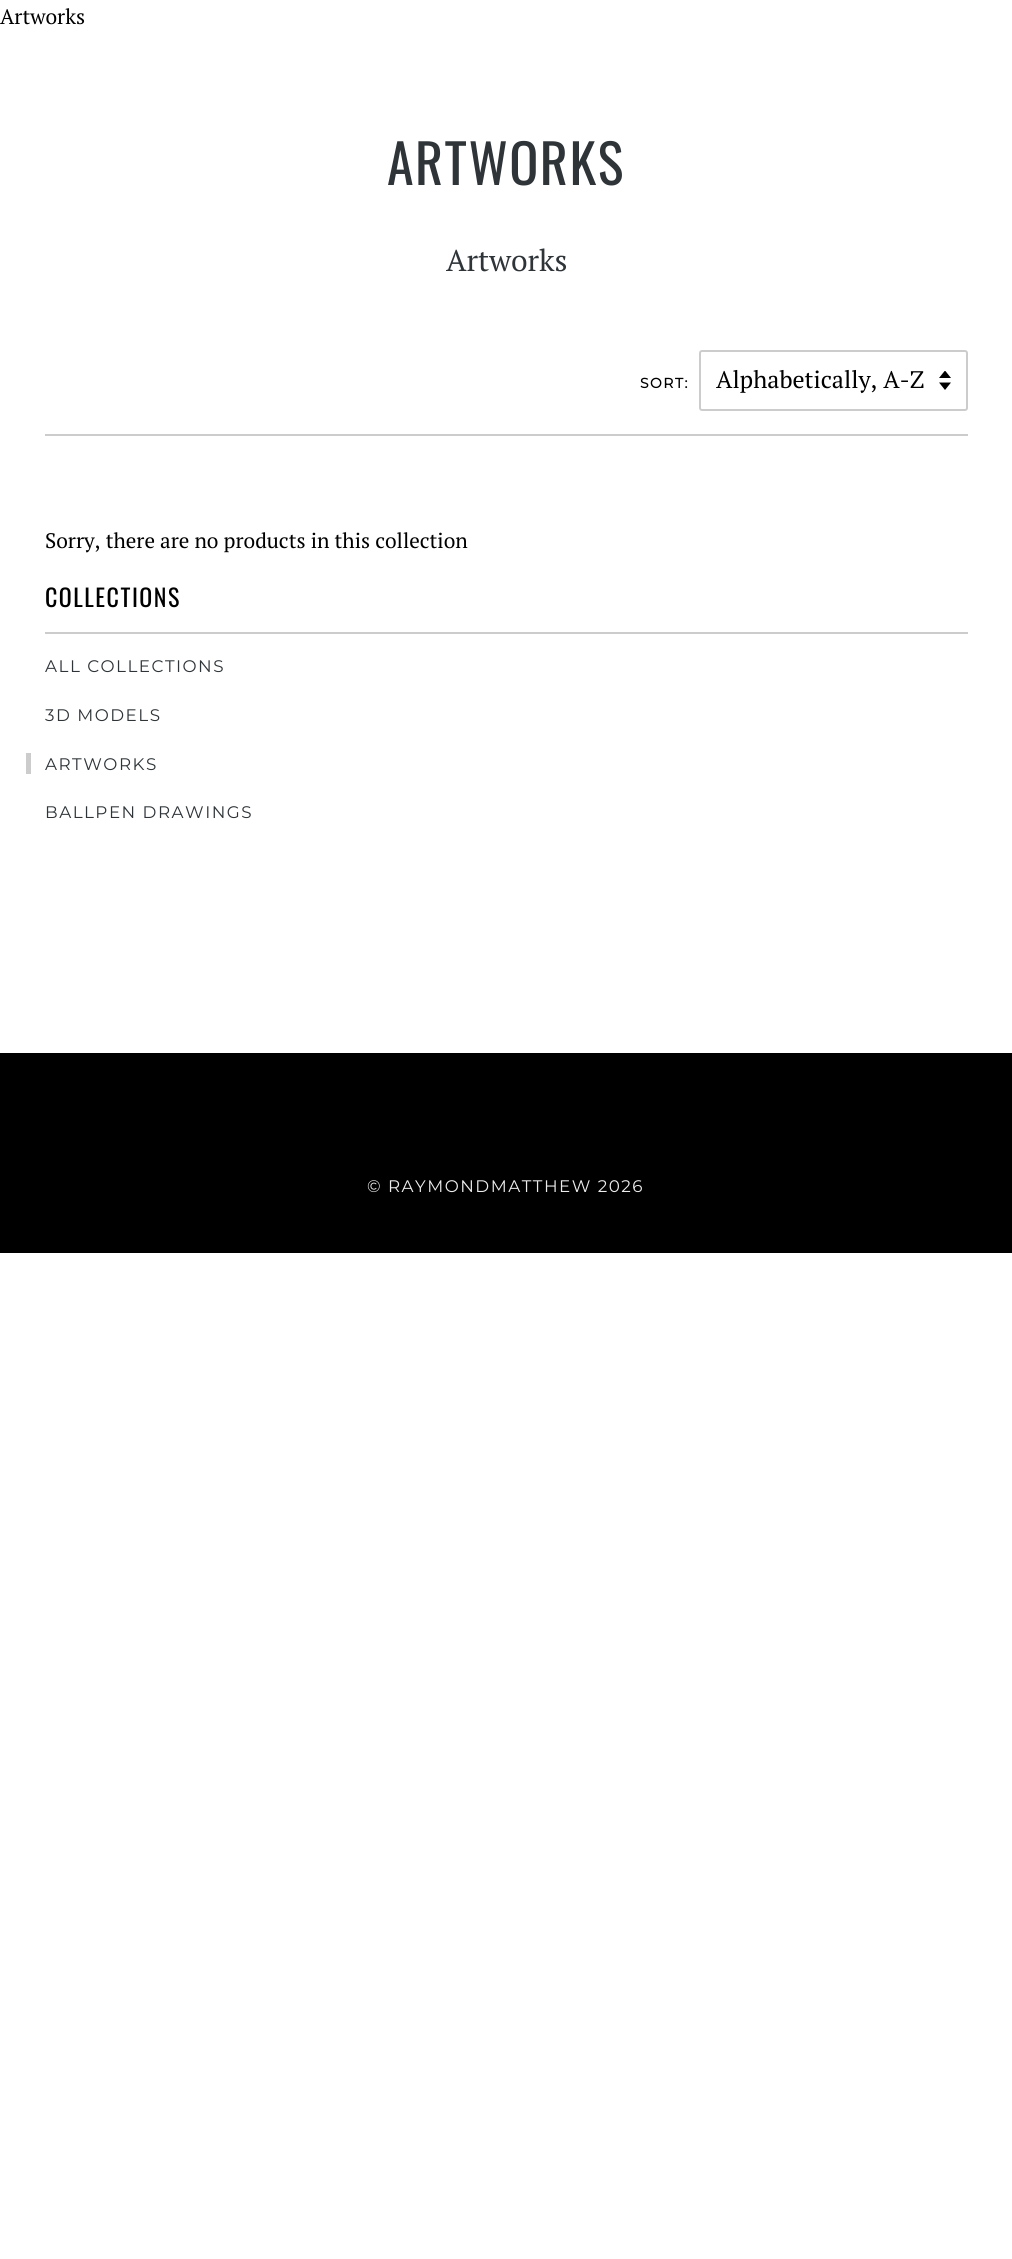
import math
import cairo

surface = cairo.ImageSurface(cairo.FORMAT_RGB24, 1012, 2259)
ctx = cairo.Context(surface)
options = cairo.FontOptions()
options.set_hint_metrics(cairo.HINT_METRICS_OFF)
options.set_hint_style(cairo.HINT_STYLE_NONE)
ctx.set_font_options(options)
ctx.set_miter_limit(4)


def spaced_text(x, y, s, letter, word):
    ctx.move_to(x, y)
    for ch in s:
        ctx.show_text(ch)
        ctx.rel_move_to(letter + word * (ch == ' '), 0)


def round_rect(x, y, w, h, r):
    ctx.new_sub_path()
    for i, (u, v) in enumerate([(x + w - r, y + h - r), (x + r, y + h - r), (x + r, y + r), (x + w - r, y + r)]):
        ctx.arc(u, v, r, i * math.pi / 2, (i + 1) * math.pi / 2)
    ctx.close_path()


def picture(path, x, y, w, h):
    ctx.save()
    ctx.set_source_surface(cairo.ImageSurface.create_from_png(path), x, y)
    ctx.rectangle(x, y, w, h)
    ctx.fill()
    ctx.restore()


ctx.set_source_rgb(1, 1, 1)
ctx.paint()
ctx.select_font_face("PT Serif")
ctx.set_font_size(21)
ctx.set_source_rgb(0, 0, 0)
ctx.move_to(0, 24)
ctx.show_text("Artworks")
ctx.select_font_face("Oswald")
ctx.set_font_size(54)
ctx.set_source_rgb(0.18, 0.204, 0.22)
spaced_text(387, 185, "ARTWORKS", 1.5, 0)
ctx.select_font_face("PT Serif")
ctx.set_font_size(30)
ctx.move_to(446, 271)
ctx.show_text("Artworks")
ctx.set_source_rgb(0.8, 0.8, 0.8)
ctx.rectangle(45, 434, 923, 2)
ctx.fill()
ctx.select_font_face("Montserrat", cairo.FONT_SLANT_NORMAL, cairo.FONT_WEIGHT_BOLD)
ctx.set_font_size(14)
ctx.set_source_rgb(0, 0, 0)
spaced_text(640, 388, "SORT:", 1.5, 0)
picture("img1.png", 939, 371, 12, 19)
round_rect(700, 351, 267, 59, 2)
ctx.set_source_rgb(0.8, 0.8, 0.8)
ctx.stroke()
ctx.select_font_face("PT Serif")
ctx.set_font_size(24)
ctx.set_source_rgb(0, 0, 0)
ctx.move_to(716, 388)
ctx.show_text("Alphabetically, A-Z")
ctx.set_font_size(21)
ctx.move_to(45, 548)
ctx.show_text("Sorry, there are no products in this collection")
ctx.select_font_face("Oswald")
ctx.set_font_size(24)
spaced_text(45, 607, "COLLECTIONS", 1.5, 0)
ctx.set_source_rgb(0.8, 0.8, 0.8)
ctx.rectangle(45, 632, 923, 2)
ctx.fill()
ctx.select_font_face("Montserrat Thin")
ctx.set_font_size(16.75)
ctx.set_source_rgb(0.18, 0.204, 0.22)
spaced_text(45, 672, "ALL COLLECTIONS", 1.5, 0)
spaced_text(45, 721, "3D MODELS", 1.5, 0)
spaced_text(45, 770, "ARTWORKS", 1.5, 0)
ctx.set_source_rgb(0.8, 0.8, 0.8)
ctx.rectangle(26, 753, 5, 21)
ctx.fill()
ctx.set_source_rgb(0.18, 0.204, 0.22)
spaced_text(45, 818, "BALLPEN DRAWINGS", 1.5, 0)
ctx.set_source_rgb(0, 0, 0)
ctx.rectangle(0, 1053, 1012, 200)
ctx.fill()
ctx.set_source_rgb(0.929, 0.929, 0.929)
spaced_text(367, 1192, "© RAYMONDMATTHEW 2026", 1.5, 0)
surface.write_to_png("page.png")
